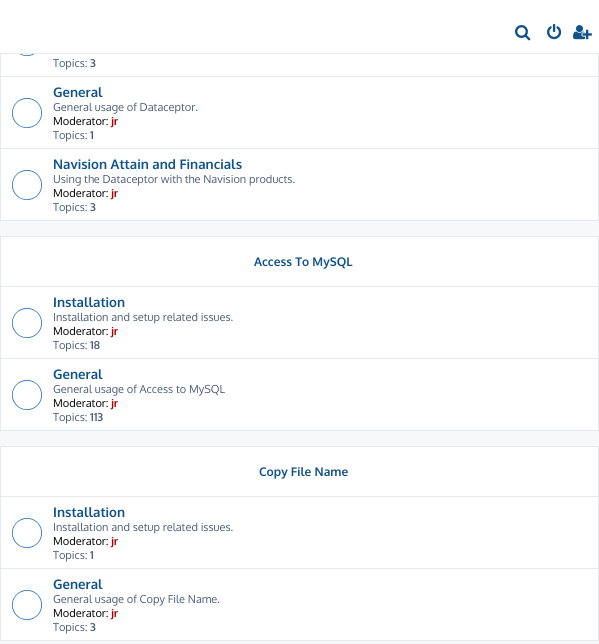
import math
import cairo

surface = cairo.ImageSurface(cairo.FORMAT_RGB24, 599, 644)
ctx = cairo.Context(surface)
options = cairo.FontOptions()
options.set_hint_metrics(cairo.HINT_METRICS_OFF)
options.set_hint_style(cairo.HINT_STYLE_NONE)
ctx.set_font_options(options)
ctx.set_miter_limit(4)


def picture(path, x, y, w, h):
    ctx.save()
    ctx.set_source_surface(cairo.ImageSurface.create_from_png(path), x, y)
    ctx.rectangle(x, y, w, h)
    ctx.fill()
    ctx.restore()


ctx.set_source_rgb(0.961, 0.969, 0.98)
ctx.paint()
ctx.set_source_rgb(1, 1, 1)
ctx.rectangle(1, 54, 597, 166)
ctx.fill()
ctx.rectangle(0.5, -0.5, 598, 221)
ctx.set_source_rgb(0.902, 0.914, 0.929)
ctx.set_line_width(1)
ctx.stroke()
ctx.set_source_rgb(1, 1, 1)
ctx.rectangle(0, 0, 599, 53)
ctx.fill()
ctx.set_source_rgb(0.902, 0.914, 0.929)
ctx.rectangle(0, 53, 599, 1)
ctx.fill()
picture("img1.png", 515, 25, 16, 16)
picture("img2.png", 547, 23, 15, 17)
picture("img3.png", 573, 25, 19, 15)
picture("img4.png", 19, 54, 16, 2)
ctx.select_font_face("Oxygen")
ctx.set_font_size(11)
ctx.set_source_rgb(0.298, 0.365, 0.467)
ctx.move_to(53, 67)
ctx.show_text("Topics:")
ctx.select_font_face("Oxygen", cairo.FONT_SLANT_NORMAL, cairo.FONT_WEIGHT_BOLD)
ctx.move_to(90, 67)
ctx.show_text("3")
ctx.set_source_rgb(0.902, 0.914, 0.929)
ctx.rectangle(1, 76, 597, 1)
ctx.fill()
picture("img5.png", 12, 98, 30, 30)
ctx.set_font_size(13.25)
ctx.set_source_rgb(0.063, 0.322, 0.537)
ctx.move_to(53, 97)
ctx.show_text("General")
ctx.select_font_face("Oxygen")
ctx.set_font_size(11)
ctx.set_source_rgb(0.298, 0.365, 0.467)
ctx.move_to(53, 111)
ctx.show_text("General usage of Dataceptor.")
ctx.set_source_rgb(0, 0, 0)
ctx.move_to(53, 125)
ctx.show_text("Moderator:")
ctx.select_font_face("Oxygen", cairo.FONT_SLANT_NORMAL, cairo.FONT_WEIGHT_BOLD)
ctx.set_source_rgb(0.667, 0, 0)
ctx.move_to(111, 125)
ctx.show_text("jr")
ctx.select_font_face("Oxygen")
ctx.set_source_rgb(0.298, 0.365, 0.467)
ctx.move_to(53, 139)
ctx.show_text("Topics:")
ctx.select_font_face("Oxygen", cairo.FONT_SLANT_NORMAL, cairo.FONT_WEIGHT_BOLD)
ctx.move_to(90, 139)
ctx.show_text("1")
ctx.set_source_rgb(0.902, 0.914, 0.929)
ctx.rectangle(1, 148, 597, 1)
ctx.fill()
picture("img5.png", 12, 170, 30, 30)
ctx.set_font_size(13.25)
ctx.set_source_rgb(0.063, 0.322, 0.537)
ctx.move_to(53, 169)
ctx.show_text("Navision Attain and Financials")
ctx.select_font_face("Oxygen")
ctx.set_font_size(11)
ctx.set_source_rgb(0.298, 0.365, 0.467)
ctx.move_to(53, 183)
ctx.show_text("Using the Dataceptor with the Navision products.")
ctx.set_source_rgb(0, 0, 0)
ctx.move_to(53, 197)
ctx.show_text("Moderator:")
ctx.select_font_face("Oxygen", cairo.FONT_SLANT_NORMAL, cairo.FONT_WEIGHT_BOLD)
ctx.set_source_rgb(0.667, 0, 0)
ctx.move_to(111, 197)
ctx.show_text("jr")
ctx.select_font_face("Oxygen")
ctx.set_source_rgb(0.298, 0.365, 0.467)
ctx.move_to(53, 211)
ctx.show_text("Topics:")
ctx.select_font_face("Oxygen", cairo.FONT_SLANT_NORMAL, cairo.FONT_WEIGHT_BOLD)
ctx.move_to(90, 211)
ctx.show_text("3")
ctx.set_source_rgb(1, 1, 1)
ctx.rectangle(0.5, 236.5, 598, 194)
ctx.fill_preserve()
ctx.set_source_rgb(0.902, 0.914, 0.929)
ctx.stroke()
ctx.set_font_size(12)
ctx.set_source_rgb(0.063, 0.322, 0.537)
ctx.move_to(254, 266)
ctx.show_text("Access To MySQL")
ctx.set_source_rgb(0.902, 0.914, 0.929)
ctx.rectangle(1, 286, 597, 1)
ctx.fill()
picture("img5.png", 12, 308, 30, 30)
ctx.set_font_size(13.25)
ctx.set_source_rgb(0.063, 0.322, 0.537)
ctx.move_to(53, 307)
ctx.show_text("Installation")
ctx.select_font_face("Oxygen")
ctx.set_font_size(11)
ctx.set_source_rgb(0.298, 0.365, 0.467)
ctx.move_to(53, 321)
ctx.show_text("Installation and setup related issues.")
ctx.set_source_rgb(0, 0, 0)
ctx.move_to(53, 335)
ctx.show_text("Moderator:")
ctx.select_font_face("Oxygen", cairo.FONT_SLANT_NORMAL, cairo.FONT_WEIGHT_BOLD)
ctx.set_source_rgb(0.667, 0, 0)
ctx.move_to(111, 335)
ctx.show_text("jr")
ctx.select_font_face("Oxygen")
ctx.set_source_rgb(0.298, 0.365, 0.467)
ctx.move_to(53, 349)
ctx.show_text("Topics:")
ctx.select_font_face("Oxygen", cairo.FONT_SLANT_NORMAL, cairo.FONT_WEIGHT_BOLD)
ctx.move_to(90, 349)
ctx.show_text("18")
ctx.set_source_rgb(0.902, 0.914, 0.929)
ctx.rectangle(1, 358, 597, 1)
ctx.fill()
picture("img5.png", 12, 380, 30, 30)
ctx.set_font_size(13.25)
ctx.set_source_rgb(0.063, 0.322, 0.537)
ctx.move_to(53, 379)
ctx.show_text("General")
ctx.select_font_face("Oxygen")
ctx.set_font_size(11)
ctx.set_source_rgb(0.298, 0.365, 0.467)
ctx.move_to(53, 393)
ctx.show_text("General usage of Access to MySQL")
ctx.set_source_rgb(0, 0, 0)
ctx.move_to(53, 407)
ctx.show_text("Moderator:")
ctx.select_font_face("Oxygen", cairo.FONT_SLANT_NORMAL, cairo.FONT_WEIGHT_BOLD)
ctx.set_source_rgb(0.667, 0, 0)
ctx.move_to(111, 407)
ctx.show_text("jr")
ctx.select_font_face("Oxygen")
ctx.set_source_rgb(0.298, 0.365, 0.467)
ctx.move_to(53, 421)
ctx.show_text("Topics:")
ctx.select_font_face("Oxygen", cairo.FONT_SLANT_NORMAL, cairo.FONT_WEIGHT_BOLD)
ctx.move_to(90, 421)
ctx.show_text("113")
ctx.set_source_rgb(1, 1, 1)
ctx.rectangle(0.5, 446.5, 598, 194)
ctx.fill_preserve()
ctx.set_source_rgb(0.902, 0.914, 0.929)
ctx.stroke()
ctx.set_font_size(12)
ctx.set_source_rgb(0.063, 0.322, 0.537)
ctx.move_to(259, 476)
ctx.show_text("Copy File Name")
ctx.set_source_rgb(0.902, 0.914, 0.929)
ctx.rectangle(1, 496, 597, 1)
ctx.fill()
picture("img5.png", 12, 518, 30, 30)
ctx.set_font_size(13.25)
ctx.set_source_rgb(0.063, 0.322, 0.537)
ctx.move_to(53, 517)
ctx.show_text("Installation")
ctx.select_font_face("Oxygen")
ctx.set_font_size(11)
ctx.set_source_rgb(0.298, 0.365, 0.467)
ctx.move_to(53, 531)
ctx.show_text("Installation and setup related issues.")
ctx.set_source_rgb(0, 0, 0)
ctx.move_to(53, 545)
ctx.show_text("Moderator:")
ctx.select_font_face("Oxygen", cairo.FONT_SLANT_NORMAL, cairo.FONT_WEIGHT_BOLD)
ctx.set_source_rgb(0.667, 0, 0)
ctx.move_to(111, 545)
ctx.show_text("jr")
ctx.select_font_face("Oxygen")
ctx.set_source_rgb(0.298, 0.365, 0.467)
ctx.move_to(53, 559)
ctx.show_text("Topics:")
ctx.select_font_face("Oxygen", cairo.FONT_SLANT_NORMAL, cairo.FONT_WEIGHT_BOLD)
ctx.move_to(90, 559)
ctx.show_text("1")
ctx.set_source_rgb(0.902, 0.914, 0.929)
ctx.rectangle(1, 568, 597, 1)
ctx.fill()
picture("img5.png", 12, 590, 30, 30)
ctx.set_font_size(13.25)
ctx.set_source_rgb(0.063, 0.322, 0.537)
ctx.move_to(53, 589)
ctx.show_text("General")
ctx.select_font_face("Oxygen")
ctx.set_font_size(11)
ctx.set_source_rgb(0.298, 0.365, 0.467)
ctx.move_to(53, 603)
ctx.show_text("General usage of Copy File Name.")
ctx.set_source_rgb(0, 0, 0)
ctx.move_to(53, 617)
ctx.show_text("Moderator:")
ctx.select_font_face("Oxygen", cairo.FONT_SLANT_NORMAL, cairo.FONT_WEIGHT_BOLD)
ctx.set_source_rgb(0.667, 0, 0)
ctx.move_to(111, 617)
ctx.show_text("jr")
ctx.select_font_face("Oxygen")
ctx.set_source_rgb(0.298, 0.365, 0.467)
ctx.move_to(53, 631)
ctx.show_text("Topics:")
ctx.select_font_face("Oxygen", cairo.FONT_SLANT_NORMAL, cairo.FONT_WEIGHT_BOLD)
ctx.move_to(90, 631)
ctx.show_text("3")
surface.write_to_png("page.png")
